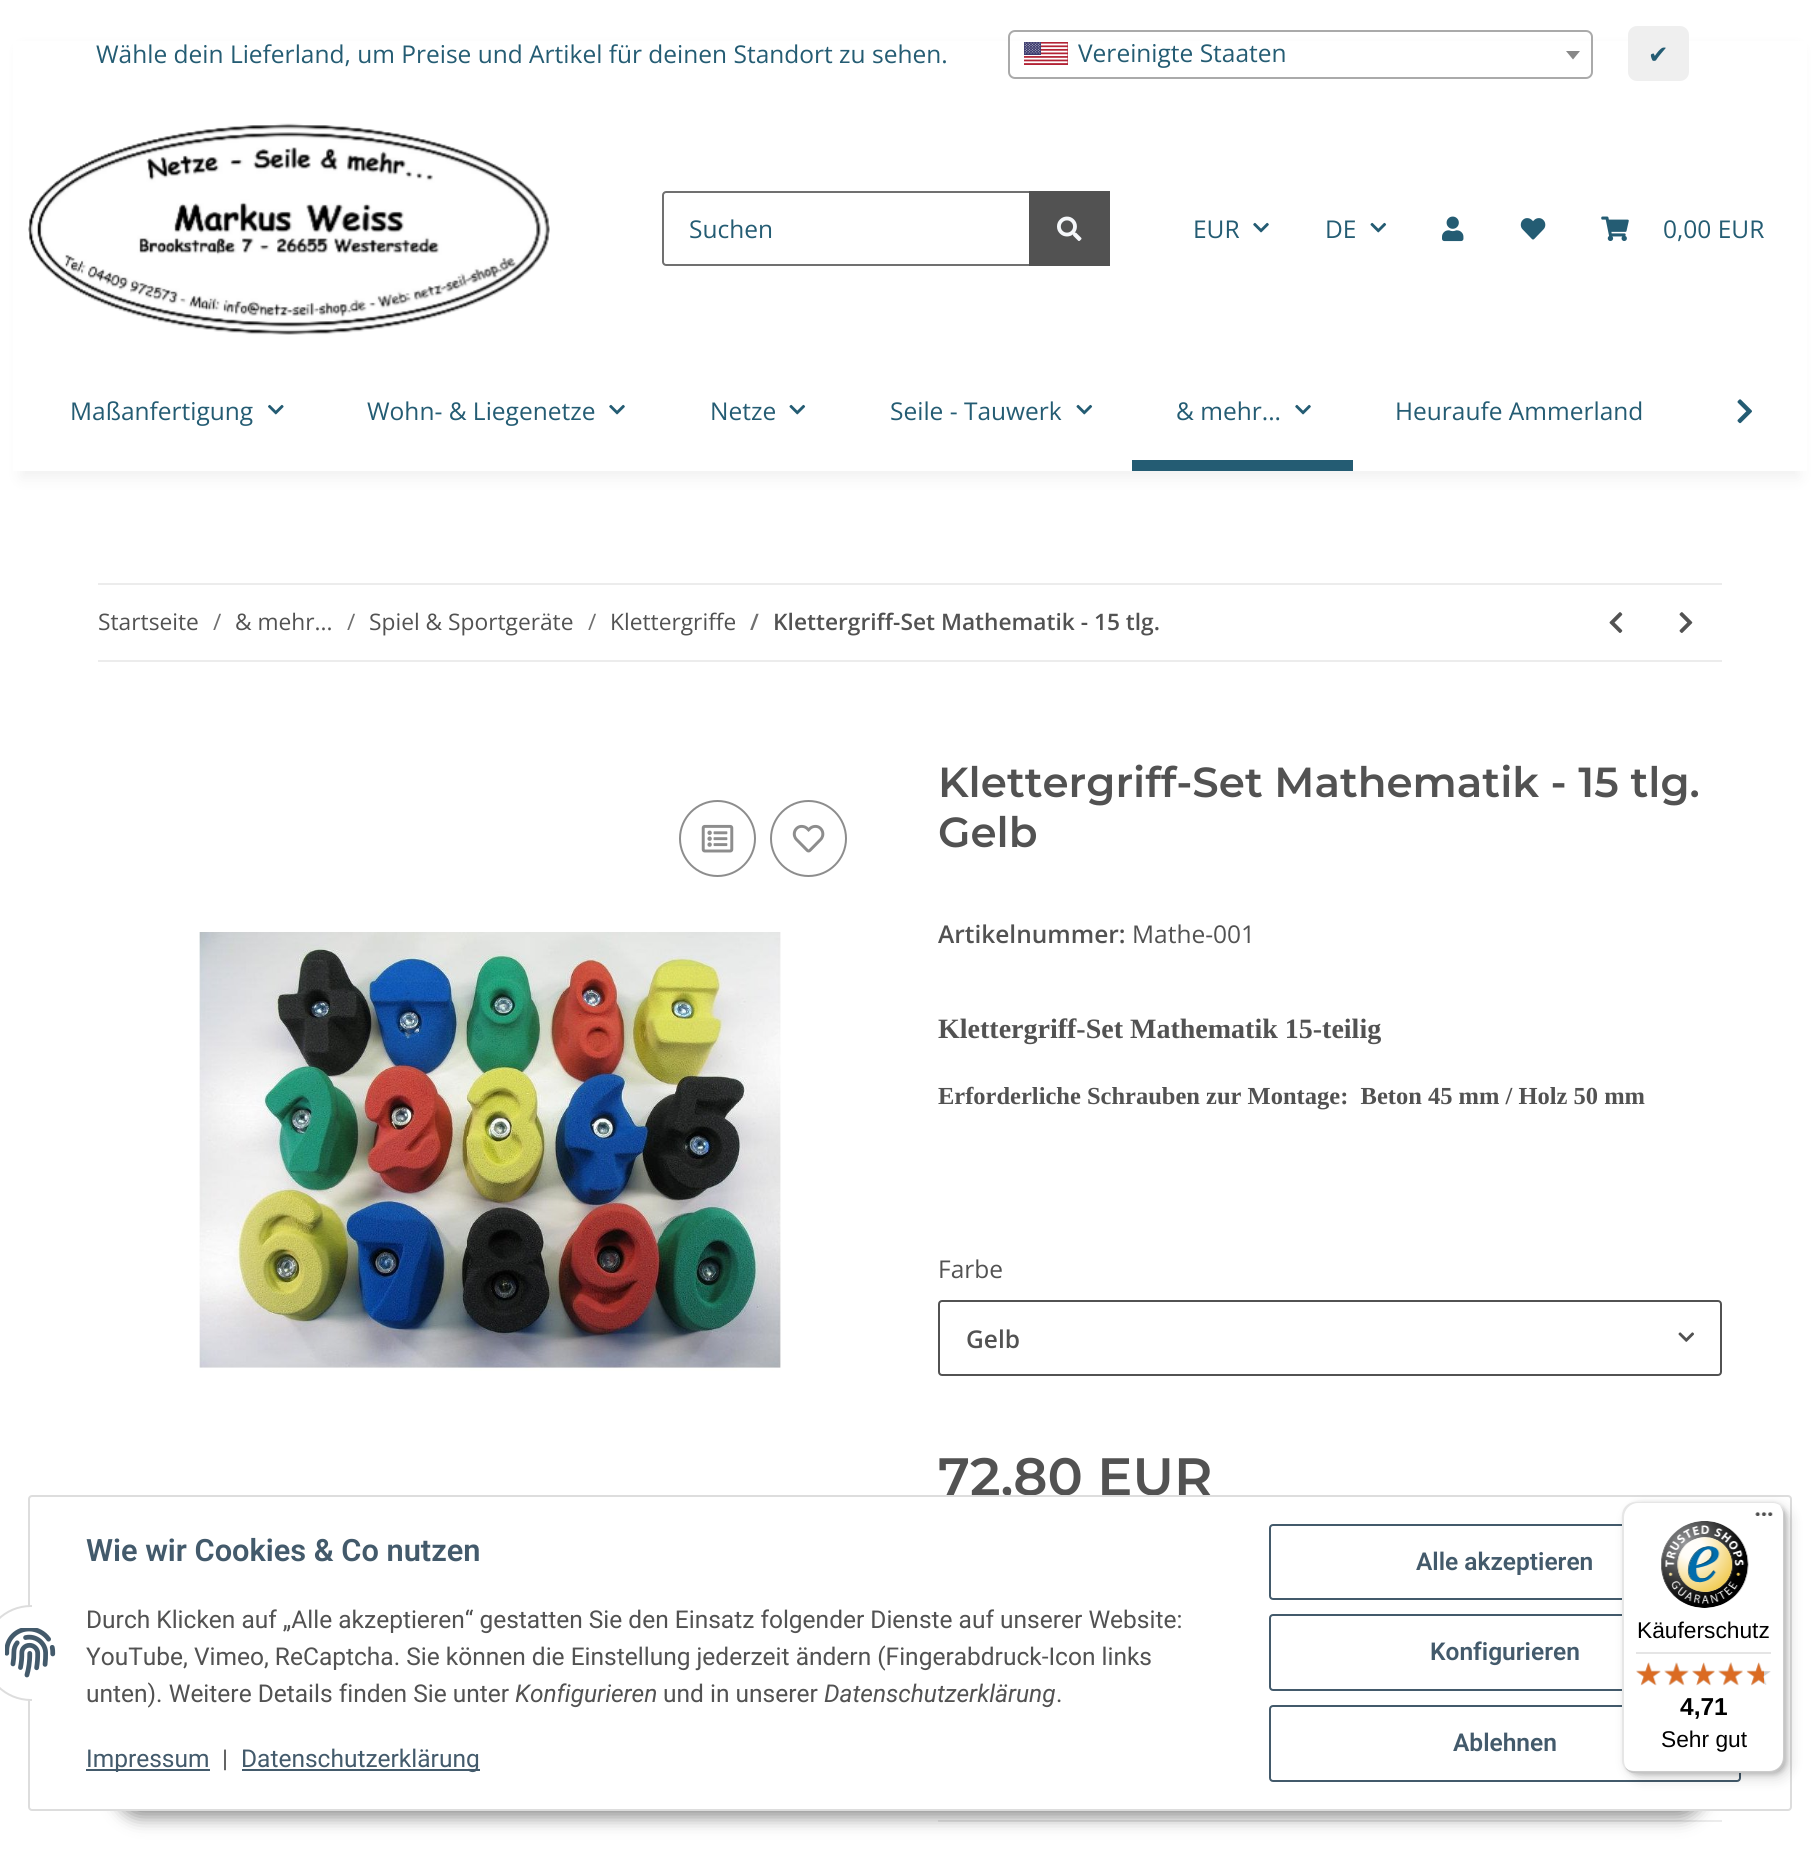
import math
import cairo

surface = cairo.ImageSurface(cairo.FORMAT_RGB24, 1819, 1866)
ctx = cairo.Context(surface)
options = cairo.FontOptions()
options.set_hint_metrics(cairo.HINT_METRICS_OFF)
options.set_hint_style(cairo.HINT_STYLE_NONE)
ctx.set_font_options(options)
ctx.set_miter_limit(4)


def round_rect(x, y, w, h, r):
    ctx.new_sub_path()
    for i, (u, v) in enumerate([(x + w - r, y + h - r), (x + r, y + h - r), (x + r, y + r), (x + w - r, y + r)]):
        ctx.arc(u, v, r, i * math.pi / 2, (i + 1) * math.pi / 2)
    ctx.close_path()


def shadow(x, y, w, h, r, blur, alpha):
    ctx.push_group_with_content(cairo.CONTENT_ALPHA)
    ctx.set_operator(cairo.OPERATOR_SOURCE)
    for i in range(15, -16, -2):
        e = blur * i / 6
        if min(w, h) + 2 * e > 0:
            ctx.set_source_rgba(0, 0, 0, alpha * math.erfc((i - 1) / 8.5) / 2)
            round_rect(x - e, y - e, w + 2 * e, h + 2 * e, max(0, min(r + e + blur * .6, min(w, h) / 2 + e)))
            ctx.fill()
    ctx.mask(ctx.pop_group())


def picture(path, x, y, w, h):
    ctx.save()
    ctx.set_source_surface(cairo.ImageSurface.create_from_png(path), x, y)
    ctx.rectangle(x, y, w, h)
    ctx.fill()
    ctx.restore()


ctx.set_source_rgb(1, 1, 1)
ctx.paint()
ctx.set_source_rgb(0, 0, 0)
shadow(21, 49, 1778, 429, 0, 8, 0.06)
ctx.set_source_rgb(1, 1, 1)
ctx.rectangle(13, 41, 1794, 430)
ctx.fill()
ctx.select_font_face("Open Sans")
ctx.set_font_size(24.5)
ctx.set_source_rgb(0.141, 0.361, 0.451)
ctx.move_to(96, 63)
ctx.show_text("Wähle dein Lieferland, um Preise und Artikel für deinen Standort zu sehen.")
round_rect(1009, 31, 583, 47, 6)
ctx.set_source_rgb(0.667, 0.667, 0.667)
ctx.stroke()
picture("img1.png", 1024, 42, 44, 23)
ctx.set_source_rgb(0.141, 0.361, 0.451)
ctx.move_to(1078, 62)
ctx.show_text("Vereinigte Staaten")
ctx.set_source_rgb(0.533, 0.533, 0.533)
ctx.new_path()
ctx.move_to(1566, 51)
ctx.line_to(1580, 51)
ctx.line_to(1573, 59.5)
ctx.close_path()
ctx.fill()
ctx.set_source_rgb(0.937, 0.937, 0.937)
round_rect(1628, 26, 61, 55, 9)
ctx.fill()
ctx.select_font_face("DejaVu Sans")
ctx.set_source_rgb(0.141, 0.361, 0.451)
ctx.move_to(1648, 63)
ctx.show_text("✔")
picture("img2.png", 28, 123, 522, 212)
ctx.new_path()
ctx.move_to(666, 192)
ctx.line_to(1030, 192)
ctx.line_to(1030, 265)
ctx.line_to(666, 265)
ctx.curve_to(664.5, 265, 663, 263.5, 663, 262)
ctx.line_to(663, 195)
ctx.curve_to(663, 193.5, 664.5, 192, 666, 192)
ctx.close_path()
ctx.set_source_rgb(0.439, 0.439, 0.439)
ctx.stroke()
ctx.select_font_face("Open Sans")
ctx.set_source_rgb(0.141, 0.361, 0.451)
ctx.move_to(689, 238)
ctx.show_text("Suchen")
ctx.set_source_rgb(0.322, 0.322, 0.322)
ctx.rectangle(1029, 191, 81, 75)
ctx.fill()
picture("img3.png", 1057, 216, 25, 25)
ctx.set_source_rgb(0.141, 0.361, 0.451)
ctx.move_to(1193, 238)
ctx.show_text("EUR")
picture("img4.png", 1253, 222, 16, 11)
ctx.move_to(1325, 238)
ctx.show_text("DE")
picture("img5.png", 1370, 222, 17, 11)
picture("img6.png", 1442, 216, 22, 26)
picture("img7.png", 1520, 218, 26, 22)
picture("img8.png", 1601, 216, 28, 25)
ctx.move_to(1663, 238)
ctx.show_text("0,00 EUR")
ctx.move_to(70, 420)
ctx.show_text("Maßanfertigung")
picture("img9.png", 268, 404, 16, 11)
ctx.move_to(367, 420)
ctx.show_text("Wohn- & Liegenetze")
picture("img4.png", 609, 404, 16, 11)
ctx.move_to(710, 420)
ctx.show_text("Netze")
picture("img5.png", 789, 404, 17, 11)
ctx.move_to(890, 420)
ctx.show_text("Seile - Tauwerk")
picture("img5.png", 1076, 404, 17, 11)
ctx.move_to(1176, 420)
ctx.show_text("& mehr...")
picture("img4.png", 1295, 404, 16, 11)
ctx.rectangle(1132, 460, 221, 11)
ctx.fill()
ctx.move_to(1395, 420)
ctx.show_text("Heuraufe Ammerland")
picture("img10.png", 1737, 399, 15, 25)
ctx.set_source_rgb(0.922, 0.922, 0.922)
ctx.rectangle(98, 583, 1624, 2)
ctx.fill()
ctx.rectangle(98, 660, 1624, 2)
ctx.fill()
ctx.set_font_size(22.75)
ctx.set_source_rgb(0.322, 0.322, 0.322)
ctx.move_to(98, 630)
ctx.show_text("Startseite")
ctx.set_source_rgb(0.439, 0.439, 0.439)
ctx.move_to(213, 630)
ctx.show_text("/")
ctx.set_source_rgb(0.322, 0.322, 0.322)
ctx.move_to(235, 630)
ctx.show_text("& mehr...")
ctx.set_source_rgb(0.439, 0.439, 0.439)
ctx.move_to(347, 630)
ctx.show_text("/")
ctx.set_source_rgb(0.322, 0.322, 0.322)
ctx.move_to(369, 630)
ctx.show_text("Spiel & Sportgeräte")
ctx.set_source_rgb(0.439, 0.439, 0.439)
ctx.move_to(588, 630)
ctx.show_text("/")
ctx.set_source_rgb(0.322, 0.322, 0.322)
ctx.move_to(610, 630)
ctx.show_text("Klettergriffe")
ctx.select_font_face("Open Sans SemiBold")
ctx.set_source_rgb(0.439, 0.439, 0.439)
ctx.move_to(750, 630)
ctx.show_text("/")
ctx.set_source_rgb(0.322, 0.322, 0.322)
ctx.move_to(773, 630)
ctx.show_text("Klettergriff-Set Mathematik - 15 tlg.")
picture("img11.png", 1609, 612, 14, 21)
picture("img12.png", 1679, 612, 14, 21)
ctx.arc(717.5, 838.5, 37.5, 0, 2 * math.pi)
ctx.set_source_rgb(0.553, 0.553, 0.553)
ctx.stroke()
picture("img13.png", 701, 824, 33, 29)
ctx.arc(808.5, 838.5, 37.5, 0, 2 * math.pi)
ctx.stroke()
picture("img14.png", 792, 824, 33, 29)
picture("img15.png", 199, 932, 582, 439)
ctx.select_font_face("Montserrat SemiBold")
ctx.set_font_size(42)
ctx.set_source_rgb(0.322, 0.322, 0.322)
ctx.move_to(938, 797)
ctx.show_text("Klettergriff-Set Mathematik - 15 tlg.")
ctx.move_to(938, 847)
ctx.show_text("Gelb")
ctx.select_font_face("Open Sans SemiBold")
ctx.set_font_size(24.5)
ctx.move_to(938, 943)
ctx.show_text("Artikelnummer:")
ctx.select_font_face("Open Sans")
ctx.move_to(1132, 943)
ctx.show_text("Mathe-001")
ctx.select_font_face("Liberation Serif", cairo.FONT_SLANT_NORMAL, cairo.FONT_WEIGHT_BOLD)
ctx.set_font_size(28)
ctx.move_to(938, 1038)
ctx.show_text("Klettergriff-Set Mathematik 15-teilig")
ctx.set_font_size(24.5)
ctx.move_to(938, 1104)
ctx.show_text("Erforderliche Schrauben zur Montage:  Beton 45 mm / Holz 50 mm")
ctx.select_font_face("Open Sans")
ctx.move_to(938, 1278)
ctx.show_text("Farbe")
round_rect(939, 1301, 782, 74, 3)
ctx.stroke()
ctx.select_font_face("Open Sans SemiBold")
ctx.move_to(966, 1348)
ctx.show_text("Gelb")
picture("img16.png", 1678, 1332, 16, 10)
ctx.select_font_face("Montserrat SemiBold")
ctx.set_font_size(52.5)
ctx.move_to(938, 1495)
ctx.show_text("72,80 EUR")
ctx.set_source_rgb(0.922, 0.922, 0.922)
ctx.rectangle(938, 1820, 784, 2)
ctx.fill()
ctx.set_source_rgb(0, 0, 0)
shadow(117, 1761, 1586, 56, 28, 9, 0.45)
ctx.set_source_rgb(1, 1, 1)
round_rect(29, 1496, 1762, 314, 3)
ctx.fill_preserve()
ctx.set_source_rgb(0.867, 0.867, 0.867)
ctx.stroke()
ctx.set_source_rgb(1, 1, 1)
ctx.arc(31, 1653, 47, 0, 2 * math.pi)
ctx.fill_preserve()
ctx.set_source_rgb(0.867, 0.867, 0.867)
ctx.stroke()
ctx.set_source_rgb(1, 1, 1)
ctx.rectangle(32, 1605, 47, 96)
ctx.fill()
picture("img17.png", 5, 1628, 51, 50)
ctx.select_font_face("Roboto SemiBold")
ctx.set_font_size(30.75)
ctx.set_source_rgb(0.263, 0.353, 0.42)
ctx.move_to(86, 1561)
ctx.show_text("Wie wir Cookies & Co nutzen")
ctx.select_font_face("Roboto")
ctx.set_font_size(24.5)
ctx.set_source_rgb(0.322, 0.322, 0.322)
ctx.move_to(86, 1628)
ctx.show_text("Durch Klicken auf „Alle akzeptieren“ gestatten Sie den Einsatz folgender Dienste auf unserer Website:")
ctx.move_to(86, 1665)
ctx.show_text("YouTube, Vimeo, ReCaptcha. Sie können die Einstellung jederzeit ändern (Fingerabdruck-Icon links")
ctx.move_to(86, 1702)
ctx.show_text("unten). Weitere Details finden Sie unter")
ctx.select_font_face("Roboto", cairo.FONT_SLANT_ITALIC)
ctx.move_to(515, 1702)
ctx.show_text("Konfigurieren")
ctx.select_font_face("Roboto")
ctx.move_to(663, 1702)
ctx.show_text("und in unserer")
ctx.select_font_face("Roboto", cairo.FONT_SLANT_ITALIC)
ctx.move_to(824, 1702)
ctx.show_text("Datenschutzerklärung")
ctx.select_font_face("Roboto")
ctx.move_to(1056, 1702)
ctx.show_text(".")
ctx.set_source_rgb(0.263, 0.353, 0.42)
ctx.rectangle(86, 1769, 124, 2)
ctx.fill()
ctx.move_to(86, 1767)
ctx.show_text("Impressum")
ctx.set_source_rgb(0.322, 0.322, 0.322)
ctx.move_to(222, 1767)
ctx.show_text("|")
ctx.set_source_rgb(0.263, 0.353, 0.42)
ctx.rectangle(242, 1769, 238, 2)
ctx.fill()
ctx.move_to(241, 1767)
ctx.show_text("Datenschutzerklärung")
round_rect(1270, 1525, 470, 74, 3)
ctx.stroke()
ctx.select_font_face("Roboto SemiBold")
ctx.move_to(1416, 1570)
ctx.show_text("Alle akzeptieren")
round_rect(1270, 1615, 470, 75, 3)
ctx.stroke()
ctx.move_to(1430, 1660)
ctx.show_text("Konfigurieren")
round_rect(1270, 1706, 470, 75, 3)
ctx.stroke()
ctx.move_to(1453, 1751)
ctx.show_text("Ablehnen")
ctx.set_source_rgb(0, 0, 0)
shadow(1628, 1507, 162, 271, 14, 7, 0.15)
shadow(1624, 1503, 163, 272, 14, 2, 0.15)
ctx.set_source_rgb(1, 1, 1)
round_rect(1622, 1502, 163, 271, 14)
ctx.fill()
ctx.set_source_rgba(0, 0, 0, 0.1)
ctx.new_path()
ctx.move_to(1638, 1503)
ctx.line_to(1773, 1503)
ctx.curve_to(1775, 1503, 1778, 1504, 1780, 1505)
ctx.curve_to(1777, 1503, 1774, 1502, 1771, 1502)
ctx.line_to(1636, 1502)
ctx.curve_to(1628, 1502, 1622, 1508, 1622, 1516)
ctx.line_to(1622, 1759)
ctx.curve_to(1622, 1765, 1625, 1769, 1630, 1772)
ctx.curve_to(1626, 1769, 1624, 1765, 1624, 1760)
ctx.line_to(1624, 1517)
ctx.curve_to(1624, 1510, 1630, 1503, 1638, 1503)
ctx.close_path()
ctx.fill()
ctx.set_source_rgba(0, 0, 0, 0.2)
ctx.new_path()
ctx.move_to(1625, 1767)
ctx.curve_to(1627, 1771, 1631, 1773, 1636, 1773)
ctx.line_to(1771, 1773)
ctx.curve_to(1779, 1773, 1785, 1767, 1785, 1759)
ctx.line_to(1785, 1516)
ctx.curve_to(1785, 1512, 1783, 1508, 1780, 1506)
ctx.curve_to(1782, 1508, 1783, 1511, 1783, 1514)
ctx.line_to(1783, 1757)
ctx.curve_to(1783, 1765, 1777, 1771, 1769, 1771)
ctx.line_to(1634, 1771)
ctx.curve_to(1631, 1771, 1627, 1770, 1625, 1767)
ctx.close_path()
ctx.fill()
ctx.set_source_rgba(0.196, 0.196, 0.196, 0.2)
ctx.new_path()
ctx.move_to(1625, 1767)
ctx.curve_to(1627, 1771, 1631, 1773, 1636, 1773)
ctx.line_to(1771, 1773)
ctx.curve_to(1779, 1773, 1785, 1767, 1785, 1759)
ctx.line_to(1785, 1516)
ctx.curve_to(1785, 1513, 1784, 1510, 1783, 1508)
ctx.curve_to(1784, 1510, 1784, 1512, 1784, 1514)
ctx.line_to(1784, 1758)
ctx.curve_to(1784, 1765, 1778, 1772, 1770, 1772)
ctx.line_to(1635, 1772)
ctx.curve_to(1631, 1772, 1627, 1770, 1625, 1767)
ctx.close_path()
ctx.fill()
ctx.set_source_rgba(1, 1, 1, 0.3)
ctx.new_path()
ctx.move_to(1625, 1768)
ctx.curve_to(1627, 1771, 1631, 1773, 1636, 1773)
ctx.line_to(1771, 1773)
ctx.curve_to(1779, 1773, 1785, 1767, 1785, 1759)
ctx.line_to(1785, 1516)
ctx.curve_to(1785, 1512, 1784, 1509, 1781, 1507)
ctx.curve_to(1783, 1509, 1784, 1512, 1784, 1515)
ctx.line_to(1784, 1758)
ctx.curve_to(1784, 1766, 1778, 1772, 1770, 1772)
ctx.line_to(1635, 1772)
ctx.curve_to(1631, 1772, 1628, 1770, 1625, 1768)
ctx.close_path()
ctx.fill()
picture("img18.png", 1755, 1512, 18, 4)
picture("img19.png", 1661, 1521, 88, 87)
ctx.select_font_face("Liberation Sans")
ctx.set_font_size(22.75)
ctx.set_source_rgb(0, 0, 0)
ctx.move_to(1637, 1638)
ctx.show_text("Käuferschutz")
ctx.set_source_rgb(0.898, 0.898, 0.898)
ctx.rectangle(1636, 1652, 135, 2)
ctx.fill()
picture("img20.png", 1636, 1663, 25, 22)
picture("img21.png", 1664, 1663, 25, 22)
picture("img22.png", 1692, 1663, 23, 22)
picture("img23.png", 1718, 1662, 25, 23)
picture("img24.png", 1747, 1663, 24, 22)
picture("img25.png", 1636, 1662, 25, 24)
picture("img26.png", 1664, 1662, 25, 24)
picture("img27.png", 1692, 1662, 23, 24)
picture("img28.png", 1718, 1662, 25, 24)
picture("img29.png", 1746, 1662, 18, 24)
ctx.select_font_face("Liberation Sans", cairo.FONT_SLANT_NORMAL, cairo.FONT_WEIGHT_BOLD)
ctx.set_font_size(24.5)
ctx.set_source_rgb(0, 0, 0)
ctx.move_to(1680, 1715)
ctx.show_text("4,71")
ctx.select_font_face("Liberation Sans")
ctx.set_font_size(22.75)
ctx.move_to(1661, 1747)
ctx.show_text("Sehr gut")
surface.write_to_png("page.png")
